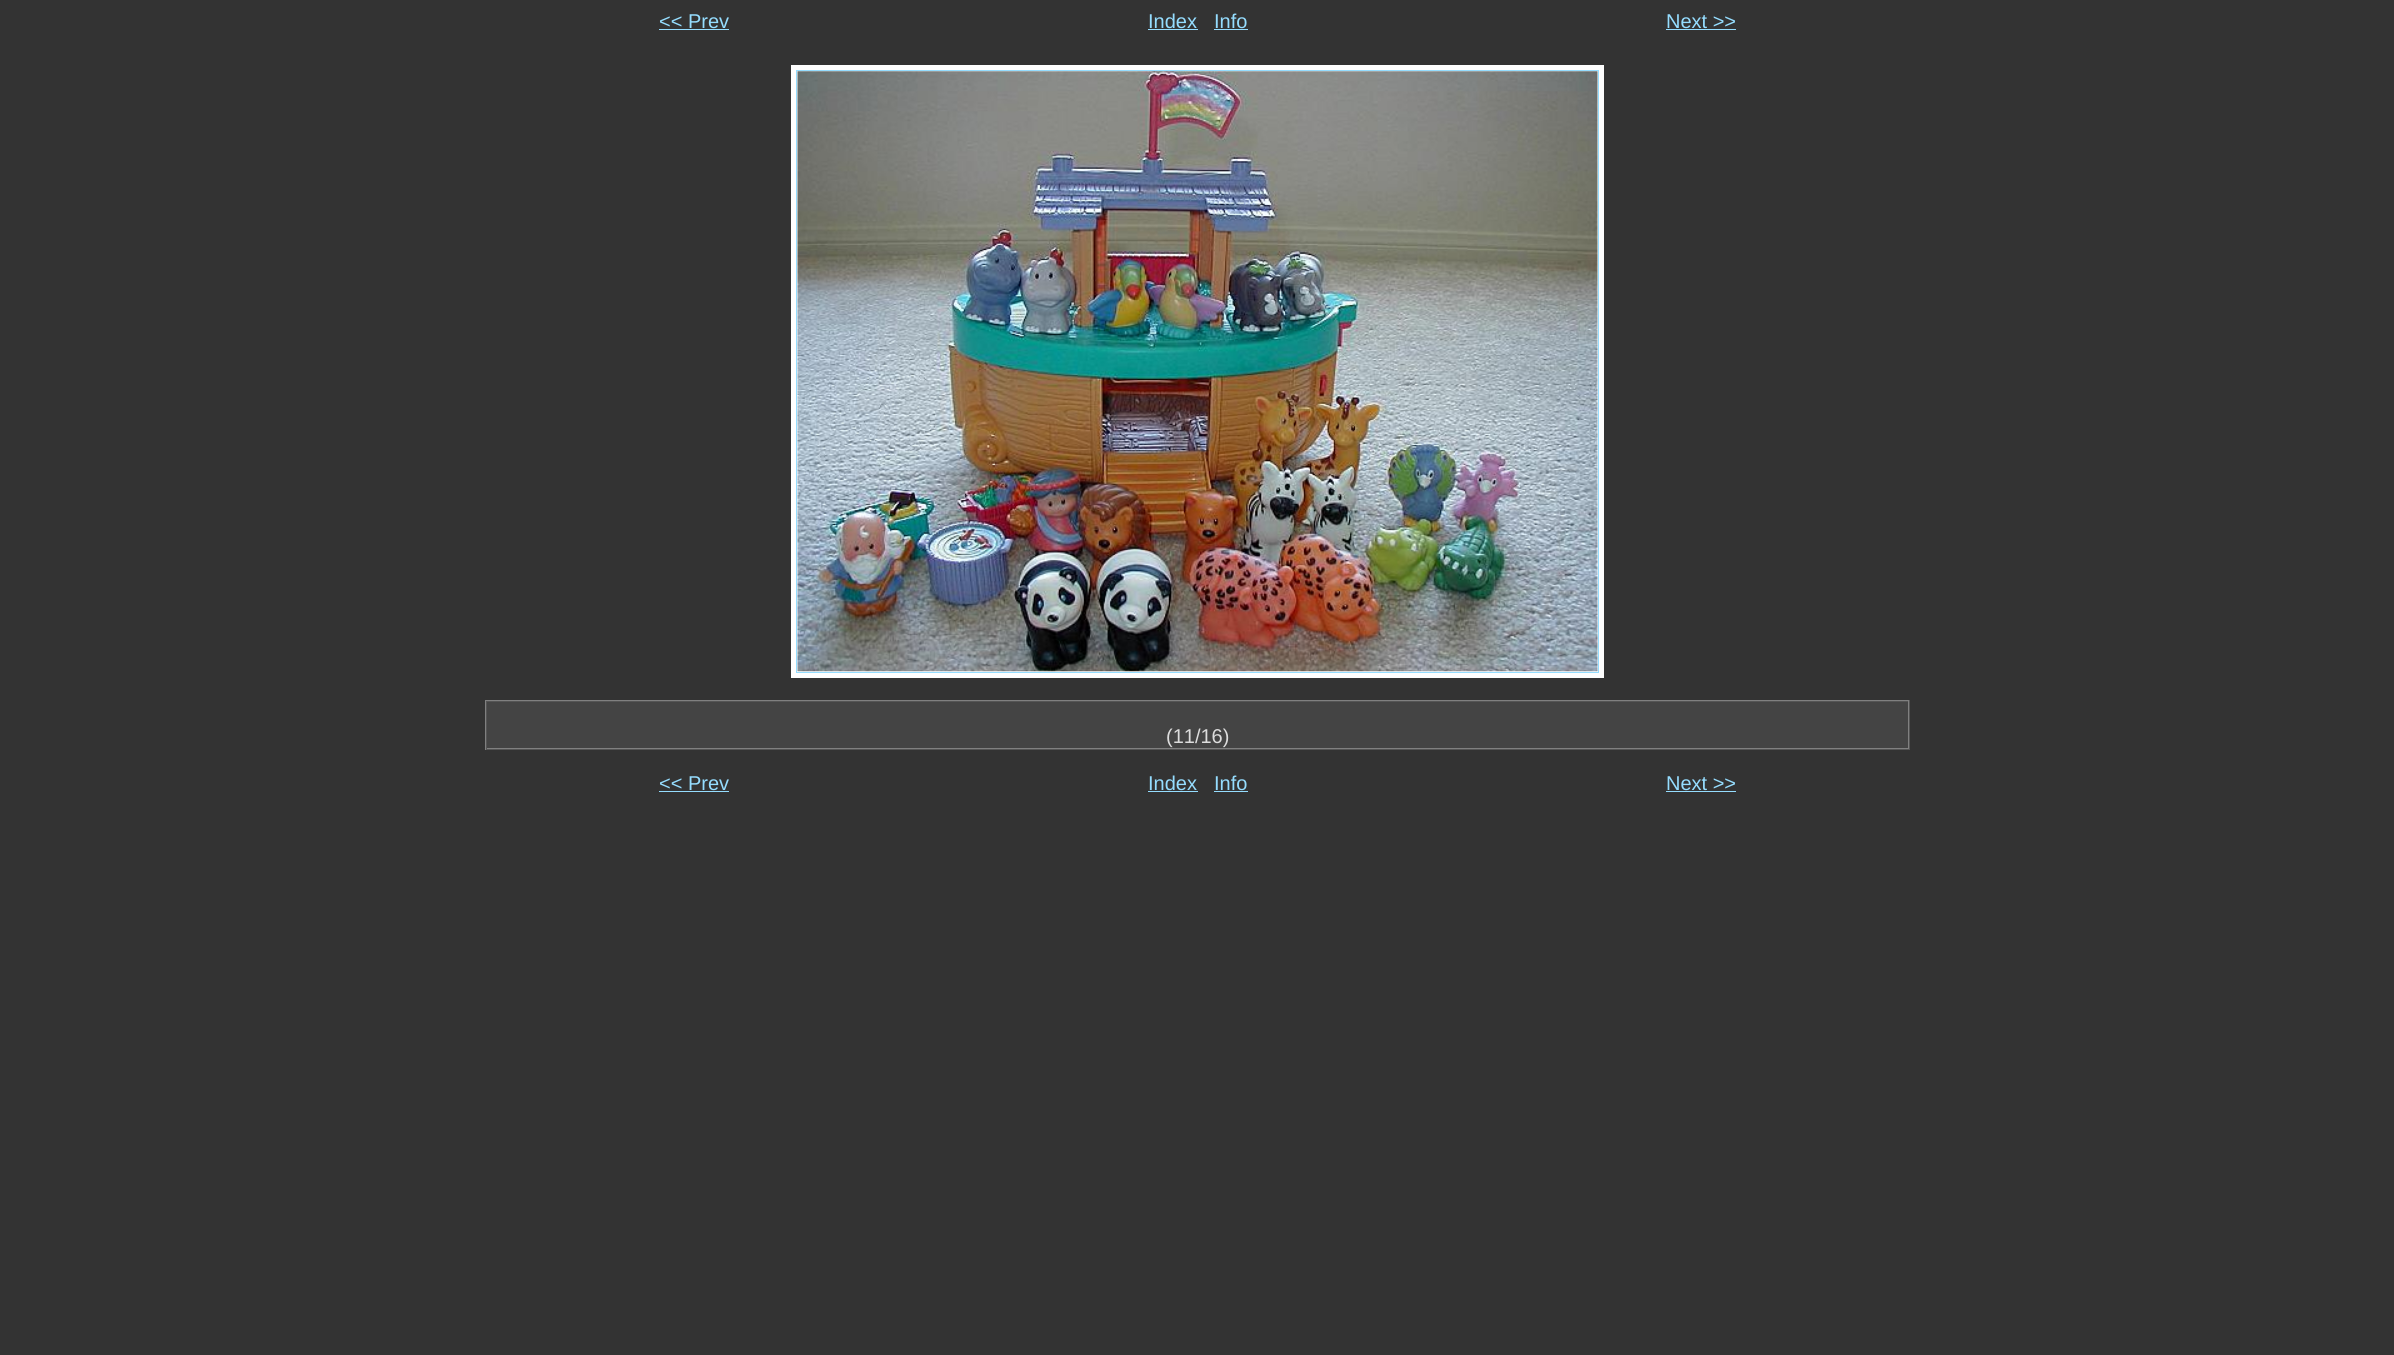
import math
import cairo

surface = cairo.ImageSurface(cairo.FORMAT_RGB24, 2394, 1355)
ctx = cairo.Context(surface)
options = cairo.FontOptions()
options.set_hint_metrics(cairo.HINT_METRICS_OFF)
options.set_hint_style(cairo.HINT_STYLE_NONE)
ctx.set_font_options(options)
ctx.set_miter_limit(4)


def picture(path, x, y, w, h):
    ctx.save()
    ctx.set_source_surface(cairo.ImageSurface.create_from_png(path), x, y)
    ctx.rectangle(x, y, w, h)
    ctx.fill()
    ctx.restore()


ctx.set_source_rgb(0.2, 0.2, 0.2)
ctx.paint()
ctx.select_font_face("Liberation Sans")
ctx.set_font_size(20)
ctx.set_source_rgb(0.584, 0.867, 1)
ctx.move_to(659, 28)
ctx.show_text("<< Prev")
ctx.rectangle(659, 29, 70, 1)
ctx.fill()
ctx.move_to(1148, 28)
ctx.show_text("Index")
ctx.rectangle(1148, 29, 50, 1)
ctx.fill()
ctx.move_to(1214, 28)
ctx.show_text("Info")
ctx.rectangle(1214, 29, 34, 1)
ctx.fill()
ctx.move_to(1666, 28)
ctx.show_text("Next >>")
ctx.rectangle(1666, 29, 70, 1)
ctx.fill()
ctx.set_source_rgb(1, 1, 1)
ctx.rectangle(791, 65, 813, 613)
ctx.fill()
ctx.rectangle(796.5, 70.5, 802, 602)
ctx.set_source_rgb(0.584, 0.867, 1)
ctx.set_line_width(1)
ctx.stroke()
picture("img1.png", 797, 71, 801, 601)
ctx.set_source_rgb(0.267, 0.267, 0.267)
ctx.rectangle(487, 702, 1421, 46)
ctx.fill()
ctx.set_source_rgb(0.502, 0.502, 0.502)
ctx.rectangle(485, 700, 1425, 1)
ctx.fill()
ctx.set_source_rgb(0.333, 0.333, 0.333)
ctx.rectangle(1909, 700, 1, 50)
ctx.fill()
ctx.rectangle(485, 749, 1425, 1)
ctx.fill()
ctx.set_source_rgb(0.502, 0.502, 0.502)
ctx.rectangle(485, 700, 1, 50)
ctx.fill()
ctx.set_source_rgb(0.333, 0.333, 0.333)
ctx.rectangle(486, 701, 1423, 1)
ctx.fill()
ctx.set_source_rgb(0.502, 0.502, 0.502)
ctx.rectangle(1908, 701, 1, 48)
ctx.fill()
ctx.rectangle(486, 748, 1423, 1)
ctx.fill()
ctx.set_source_rgb(0.333, 0.333, 0.333)
ctx.rectangle(486, 701, 1, 48)
ctx.fill()
ctx.set_source_rgb(0.867, 0.867, 0.867)
ctx.move_to(1166, 743)
ctx.show_text("(11/16)")
ctx.set_source_rgb(0.584, 0.867, 1)
ctx.move_to(659, 790)
ctx.show_text("<< Prev")
ctx.rectangle(659, 791, 70, 1)
ctx.fill()
ctx.move_to(1148, 790)
ctx.show_text("Index")
ctx.rectangle(1148, 791, 50, 1)
ctx.fill()
ctx.move_to(1214, 790)
ctx.show_text("Info")
ctx.rectangle(1214, 791, 34, 1)
ctx.fill()
ctx.move_to(1666, 790)
ctx.show_text("Next >>")
ctx.rectangle(1666, 791, 70, 1)
ctx.fill()
surface.write_to_png("page.png")
